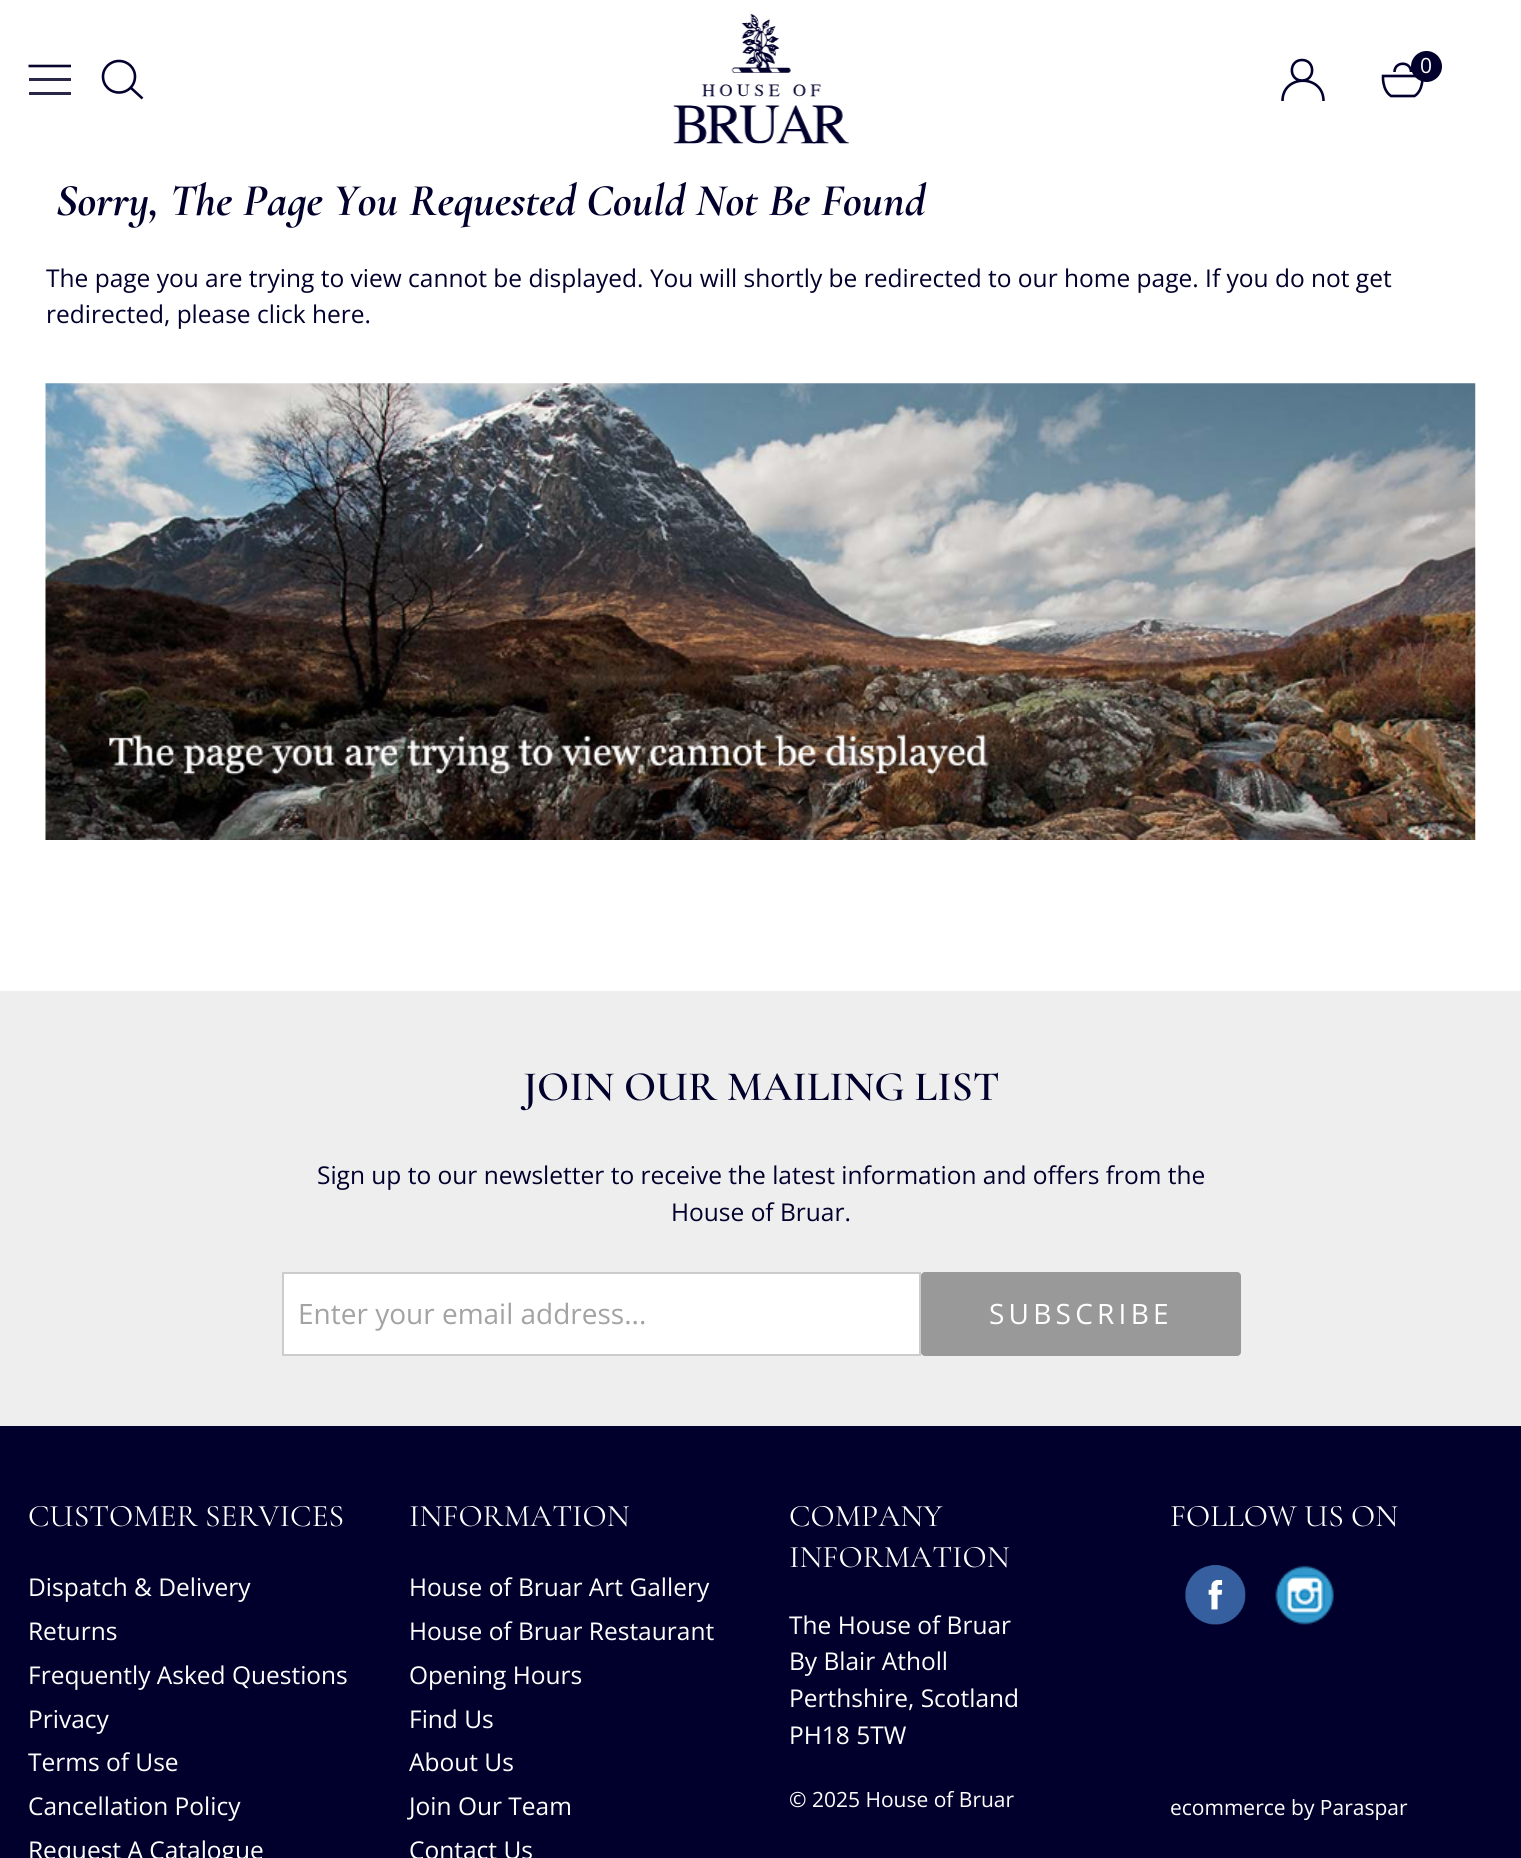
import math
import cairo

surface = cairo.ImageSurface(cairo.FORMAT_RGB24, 1521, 1858)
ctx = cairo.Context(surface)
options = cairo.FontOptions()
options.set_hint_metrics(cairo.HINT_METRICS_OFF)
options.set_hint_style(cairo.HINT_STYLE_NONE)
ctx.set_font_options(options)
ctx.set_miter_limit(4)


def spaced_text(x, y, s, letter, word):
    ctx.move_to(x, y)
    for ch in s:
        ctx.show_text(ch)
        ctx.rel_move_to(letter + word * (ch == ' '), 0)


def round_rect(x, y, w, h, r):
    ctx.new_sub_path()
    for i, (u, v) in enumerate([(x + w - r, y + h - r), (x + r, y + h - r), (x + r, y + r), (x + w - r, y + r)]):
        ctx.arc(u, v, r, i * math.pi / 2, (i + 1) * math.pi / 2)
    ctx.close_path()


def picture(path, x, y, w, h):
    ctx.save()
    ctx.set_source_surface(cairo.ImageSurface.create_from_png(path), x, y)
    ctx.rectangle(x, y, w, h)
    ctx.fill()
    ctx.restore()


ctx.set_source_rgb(1, 1, 1)
ctx.paint()
ctx.new_path()
ctx.move_to(28.5, 66)
ctx.line_to(71, 66)
ctx.set_source_rgb(0.027, 0.024, 0.176)
ctx.set_line_width(2.6)
ctx.stroke()
ctx.set_source_rgb(0.157, 0.153, 0.286)
ctx.rectangle(29, 78, 42, 3)
ctx.fill()
ctx.rectangle(29, 92, 42, 3)
ctx.fill()
ctx.new_path()
ctx.move_to(119, 92.5)
ctx.curve_to(128, 92.5, 135, 85.5, 135, 76.5)
ctx.curve_to(135, 68, 128, 61, 119, 61)
ctx.curve_to(110, 61, 103, 68, 103, 76.5)
ctx.curve_to(103, 85.5, 110, 92.5, 119, 92.5)
ctx.close_path()
ctx.move_to(130.5, 87.5)
ctx.line_to(142.5, 98.5)
ctx.set_source_rgb(0.008, 0.004, 0.18)
ctx.stroke()
picture("img1.png", 673, 14, 176, 130)
ctx.new_path()
ctx.move_to(1302, 80.5)
ctx.curve_to(1315.5, 80.5, 1315.5, 60, 1302, 60)
ctx.curve_to(1288.5, 60, 1288.5, 80.5, 1302, 80.5)
ctx.close_path()
ctx.move_to(1282.5, 101)
ctx.curve_to(1282.5, 74, 1323.5, 74, 1323.5, 101)
ctx.stroke()
ctx.new_path()
ctx.move_to(1422.5, 76)
ctx.curve_to(1422.5, 76, 1423.5, 90.5, 1414.5, 96)
ctx.line_to(1391, 96)
ctx.curve_to(1382, 90, 1383, 76, 1383, 76)
ctx.close_path()
ctx.move_to(1394.5, 72)
ctx.curve_to(1394.5, 61, 1411, 61, 1411, 72)
ctx.stroke()
ctx.set_source_rgb(0.004, 0, 0.173)
ctx.arc(1426.5, 66.5, 15.5, 0, 2 * math.pi)
ctx.fill()
ctx.select_font_face("Open Sans")
ctx.set_font_size(21)
ctx.set_source_rgb(1, 1, 1)
ctx.move_to(1420, 73)
ctx.show_text("0")
ctx.select_font_face("Cormorant Infant", cairo.FONT_SLANT_ITALIC, cairo.FONT_WEIGHT_BOLD)
ctx.set_font_size(45.5)
ctx.set_source_rgb(0.004, 0, 0.173)
ctx.move_to(56, 215)
ctx.show_text("Sorry, The Page You Requested Could Not Be Found")
ctx.select_font_face("Open Sans")
ctx.set_font_size(24.5)
ctx.move_to(46, 287)
ctx.show_text("The page you are trying to view cannot be displayed. You will shortly be redirected to our home page. If you do not get")
ctx.move_to(46, 323)
ctx.show_text("redirected, please click here.")
picture("img2.png", 45, 383, 1431, 457)
ctx.set_source_rgb(0.933, 0.933, 0.933)
ctx.rectangle(0, 991, 1521, 435)
ctx.fill()
ctx.select_font_face("Cormorant Infant SemiBold")
ctx.set_font_size(42)
ctx.set_source_rgb(0.004, 0, 0.173)
ctx.move_to(523, 1100)
ctx.show_text("JOIN OUR MAILING LIST")
ctx.select_font_face("Open Sans")
ctx.set_font_size(24.5)
ctx.move_to(317, 1184)
ctx.show_text("Sign up to our newsletter to receive the latest information and offers from the")
ctx.move_to(671, 1221)
ctx.show_text("House of Bruar.")
ctx.set_source_rgb(1, 1, 1)
ctx.rectangle(283, 1273, 637, 82)
ctx.fill_preserve()
ctx.set_source_rgb(0.8, 0.8, 0.8)
ctx.set_line_width(2)
ctx.stroke()
ctx.set_font_size(28)
ctx.set_source_rgb(0.643, 0.639, 0.639)
ctx.move_to(298, 1324)
ctx.show_text("Enter your email address...")
ctx.set_source_rgb(0.6, 0.6, 0.6)
round_rect(921, 1272, 320, 84, 4)
ctx.fill()
ctx.set_source_rgb(1, 1, 1)
spaced_text(989, 1324, "SUBSCRIBE", 4.25, 0)
ctx.set_source_rgb(0.004, 0, 0.173)
ctx.rectangle(0, 1426, 1521, 432)
ctx.fill()
ctx.select_font_face("Cormorant Infant")
ctx.set_font_size(31.5)
ctx.set_source_rgb(1, 1, 1)
ctx.move_to(28, 1526)
ctx.show_text("CUSTOMER SERVICES")
ctx.select_font_face("Open Sans")
ctx.set_font_size(24.5)
ctx.move_to(28, 1596)
ctx.show_text("Dispatch & Delivery")
ctx.move_to(28, 1640)
ctx.show_text("Returns")
ctx.move_to(28, 1684)
ctx.show_text("Frequently Asked Questions")
ctx.move_to(28, 1728)
ctx.show_text("Privacy")
ctx.move_to(28, 1771)
ctx.show_text("Terms of Use")
ctx.move_to(28, 1815)
ctx.show_text("Cancellation Policy")
ctx.move_to(28, 1859)
ctx.show_text("Request A Catalogue")
ctx.select_font_face("Cormorant Infant")
ctx.set_font_size(31.5)
ctx.move_to(409, 1526)
ctx.show_text("INFORMATION")
ctx.select_font_face("Open Sans")
ctx.set_font_size(24.5)
ctx.move_to(409, 1596)
ctx.show_text("House of Bruar Art Gallery")
ctx.move_to(409, 1640)
ctx.show_text("House of Bruar Restaurant")
ctx.move_to(409, 1684)
ctx.show_text("Opening Hours")
ctx.move_to(409, 1728)
ctx.show_text("Find Us")
ctx.move_to(409, 1771)
ctx.show_text("About Us")
ctx.move_to(409, 1815)
ctx.show_text("Join Our Team")
ctx.move_to(409, 1859)
ctx.show_text("Contact Us")
ctx.select_font_face("Cormorant Infant")
ctx.set_font_size(31.5)
ctx.move_to(789, 1526)
ctx.show_text("COMPANY")
ctx.move_to(789, 1567)
ctx.show_text("INFORMATION")
ctx.select_font_face("Open Sans")
ctx.set_font_size(24.5)
ctx.move_to(789, 1634)
ctx.show_text("The House of Bruar")
ctx.move_to(789, 1670)
ctx.show_text("By Blair Atholl")
ctx.move_to(789, 1707)
ctx.show_text("Perthshire, Scotland")
ctx.move_to(789, 1744)
ctx.show_text("PH18 5TW")
ctx.set_font_size(21)
ctx.move_to(789, 1807)
ctx.show_text("© 2025 House of Bruar")
ctx.select_font_face("Cormorant Infant")
ctx.set_font_size(31.5)
ctx.move_to(1170, 1526)
ctx.show_text("FOLLOW US ON")
picture("img3.png", 1185, 1565, 61, 60)
picture("img4.png", 1275, 1565, 59, 60)
ctx.select_font_face("Open Sans")
ctx.set_font_size(21)
ctx.move_to(1170, 1815)
ctx.show_text("ecommerce by Paraspar")
surface.write_to_png("page.png")
